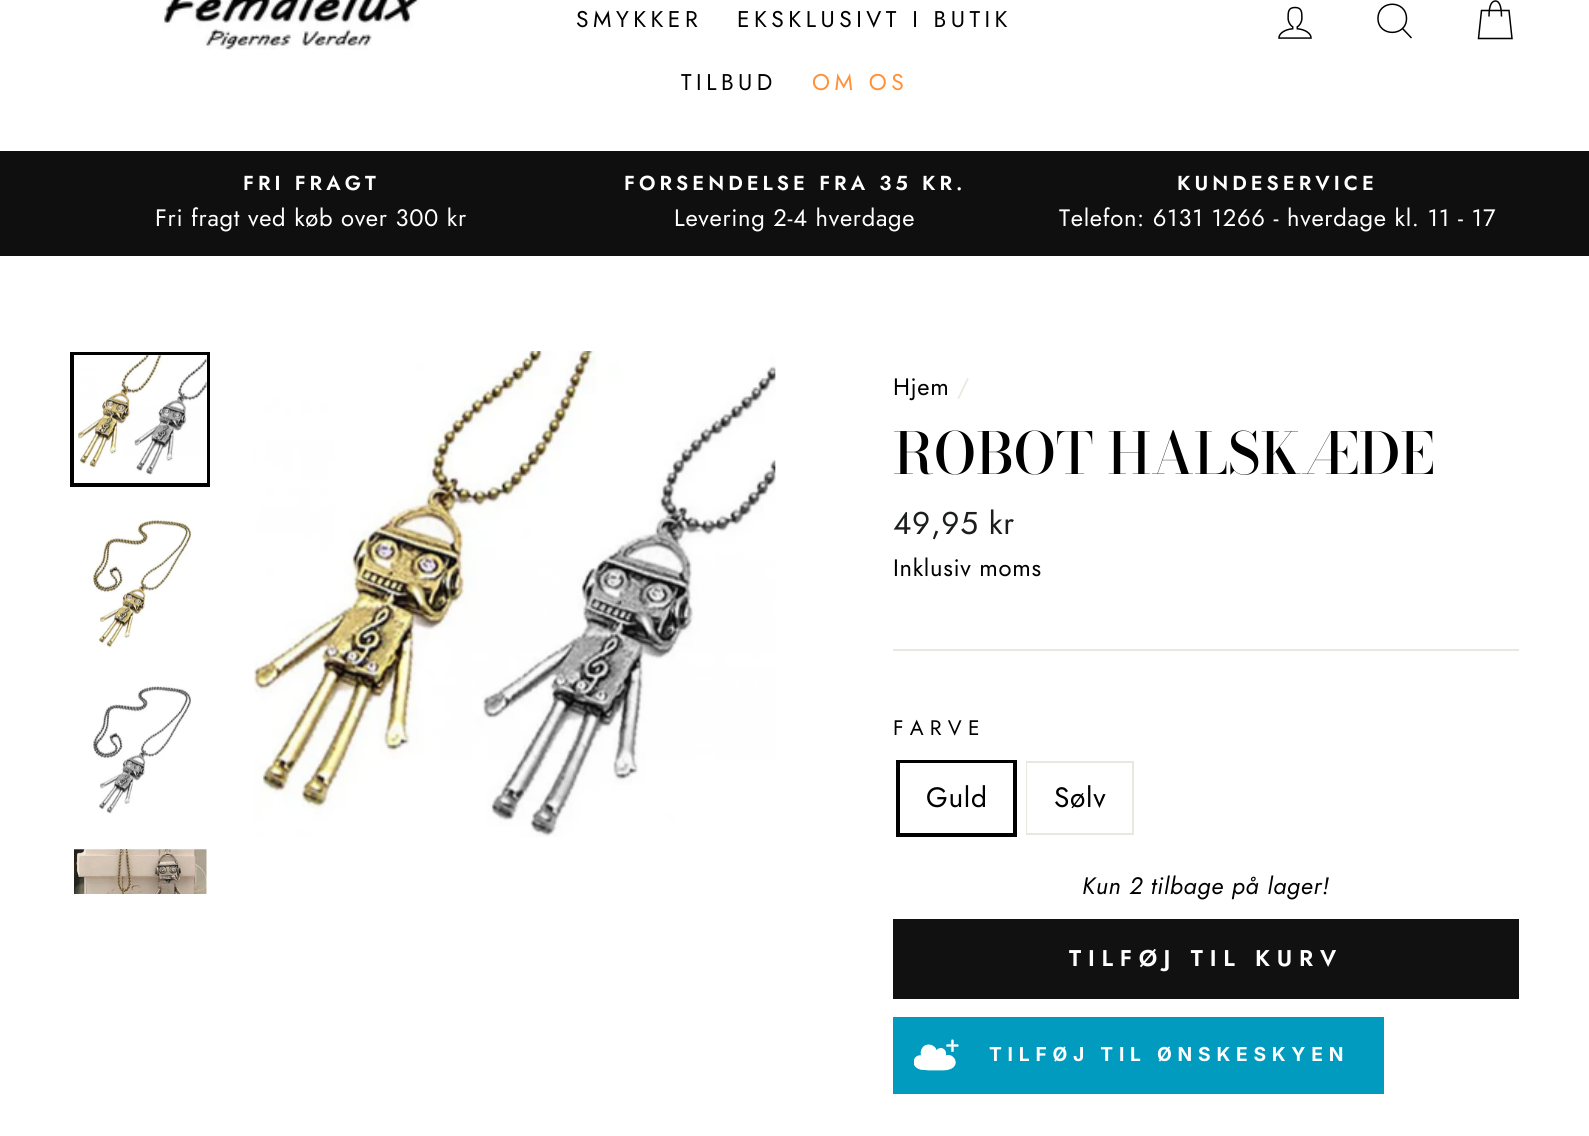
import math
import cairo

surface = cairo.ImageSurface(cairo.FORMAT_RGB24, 1589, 1136)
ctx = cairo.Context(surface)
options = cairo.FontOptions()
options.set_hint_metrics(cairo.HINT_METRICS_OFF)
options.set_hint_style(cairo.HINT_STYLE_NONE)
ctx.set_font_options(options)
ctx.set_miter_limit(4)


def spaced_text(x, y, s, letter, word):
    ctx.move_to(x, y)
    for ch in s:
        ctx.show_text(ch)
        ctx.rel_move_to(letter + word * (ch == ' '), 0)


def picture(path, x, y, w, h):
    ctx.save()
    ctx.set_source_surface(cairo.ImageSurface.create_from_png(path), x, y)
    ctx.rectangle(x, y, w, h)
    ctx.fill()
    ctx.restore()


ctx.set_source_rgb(1, 1, 1)
ctx.paint()
picture("img1.png", 163, 0, 257, 50)
ctx.select_font_face("Jost")
ctx.set_font_size(22.75)
ctx.set_source_rgb(0, 0, 0)
spaced_text(576, 27, "SMYKKER", 4.5, 0)
spaced_text(737, 27, "EKSKLUSIVT I BUTIK", 4.5, 0)
spaced_text(681, 90, "TILBUD", 4.5, 0)
ctx.set_source_rgb(1, 0.569, 0.22)
spaced_text(812, 90, "OM OS", 4.5, 0)
picture("img2.png", 1278, 6, 34, 33)
ctx.new_path()
ctx.move_to(1406.5, 18.5)
ctx.curve_to(1406.5, 37, 1378, 37, 1378, 18.5)
ctx.curve_to(1378, -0.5, 1406.5, -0.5, 1406.5, 18.5)
ctx.close_path()
ctx.move_to(1411.5, 38)
ctx.line_to(1402.5, 28.5)
ctx.set_source_rgb(0, 0, 0)
ctx.set_line_width(1.5)
ctx.stroke()
ctx.new_path()
ctx.move_to(1489, 16.5)
ctx.curve_to(1489, 4.5, 1492, 1, 1495.5, 1)
ctx.curve_to(1498.5, 1, 1501.5, 4.5, 1501.5, 16.5)
ctx.move_to(1481.5, 10.5)
ctx.line_to(1509, 10.5)
ctx.line_to(1512, 38.5)
ctx.line_to(1478.5, 38.5)
ctx.close_path()
ctx.stroke()
ctx.set_source_rgb(0.059, 0.059, 0.059)
ctx.rectangle(0, 151, 1589, 105)
ctx.fill()
ctx.select_font_face("Jost SemiBold")
ctx.set_font_size(20.25)
ctx.set_source_rgb(1, 1, 1)
spaced_text(243, 190, "FRI FRAGT", 4.05, 0)
ctx.select_font_face("Jost")
ctx.set_font_size(23.75)
spaced_text(155, 226, "Fri fragt ved køb over 300 kr", 0.7, 0)
ctx.select_font_face("Jost SemiBold")
ctx.set_font_size(20.25)
spaced_text(624, 190, "FORSENDELSE FRA 35 KR.", 4.05, 0)
ctx.select_font_face("Jost")
ctx.set_font_size(23.75)
spaced_text(674, 226, "Levering 2-4 hverdage", 0.7, 0)
ctx.select_font_face("Jost SemiBold")
ctx.set_font_size(20.25)
spaced_text(1177, 190, "KUNDESERVICE", 4.05, 0)
ctx.select_font_face("Jost")
ctx.set_font_size(23.75)
spaced_text(1059, 226, "Telefon: 6131 1266 - hverdage kl. 11 - 17", 0.7, 0)
ctx.rectangle(72, 354, 136, 131)
ctx.set_source_rgb(0, 0, 0)
ctx.set_line_width(4)
ctx.stroke()
ctx.set_source_rgb(1, 1, 1)
ctx.rectangle(74, 355, 133, 128)
ctx.fill()
picture("img3.png", 78, 355, 129, 120)
picture("img4.png", 91, 519, 102, 130)
picture("img5.png", 93, 686, 98, 128)
picture("img6.png", 74, 848, 133, 46)
picture("img7.png", 253, 351, 523, 486)
ctx.set_source_rgb(0, 0, 0)
spaced_text(893, 395, "Hjem", 0.7, 0)
ctx.set_source_rgb(0.91, 0.91, 0.882)
spaced_text(957, 395, "/", 0.7, 0)
ctx.select_font_face("Bodoni Moda Medium")
ctx.set_font_size(57.25)
ctx.set_source_rgb(0, 0, 0)
ctx.move_to(893, 474)
ctx.show_text("ROBOT HALSKÆDE")
ctx.select_font_face("Jost")
ctx.set_font_size(31.5)
ctx.set_source_rgb(0.11, 0.114, 0.114)
spaced_text(893, 534, "49,95 kr", 0.7, 0)
ctx.set_font_size(23.75)
ctx.set_source_rgb(0, 0, 0)
spaced_text(893, 576, "Inklusiv moms", 0.7, 0)
ctx.set_source_rgb(0.91, 0.91, 0.882)
ctx.rectangle(893, 649, 626, 2)
ctx.fill()
ctx.set_font_size(21)
ctx.set_source_rgb(0, 0, 0)
spaced_text(893, 735, "FARVE", 6.25, 0)
ctx.rectangle(898, 762, 117, 73)
ctx.stroke()
ctx.set_source_rgb(1, 1, 1)
ctx.rectangle(900, 763, 113, 1)
ctx.fill()
ctx.set_font_size(28)
ctx.set_source_rgb(0, 0, 0)
spaced_text(926, 807, "Guld", 0.7, 0)
ctx.rectangle(1027, 762, 106, 72)
ctx.set_source_rgb(0.91, 0.91, 0.882)
ctx.set_line_width(2)
ctx.stroke()
ctx.set_source_rgb(1, 1, 1)
ctx.rectangle(1027, 763, 1, 70)
ctx.fill()
ctx.set_source_rgb(0, 0, 0)
spaced_text(1054, 807, "Sølv", 0.7, 0)
ctx.select_font_face("Jost", cairo.FONT_SLANT_ITALIC)
ctx.set_font_size(23.75)
spaced_text(1082, 894, "Kun 2 tilbage på lager!", 0.7, 0)
ctx.set_source_rgb(0.067, 0.067, 0.067)
ctx.rectangle(893, 919, 626, 80)
ctx.fill()
ctx.select_font_face("Jost SemiBold")
ctx.set_font_size(22.75)
ctx.set_source_rgb(1, 1, 1)
spaced_text(1069, 966, "TILFØJ TIL KURV", 6.8, 0)
ctx.set_source_rgb(0, 0.608, 0.749)
ctx.rectangle(893, 1017, 491, 77)
ctx.fill()
picture("img8.png", 914, 1039, 45, 32)
ctx.select_font_face("Inter", cairo.FONT_SLANT_NORMAL, cairo.FONT_WEIGHT_BOLD)
ctx.set_font_size(19.25)
ctx.set_source_rgb(1, 1, 1)
spaced_text(989, 1061, "TILFØJ TIL ØNSKESKYEN", 5.75, 0)
surface.write_to_png("page.png")
